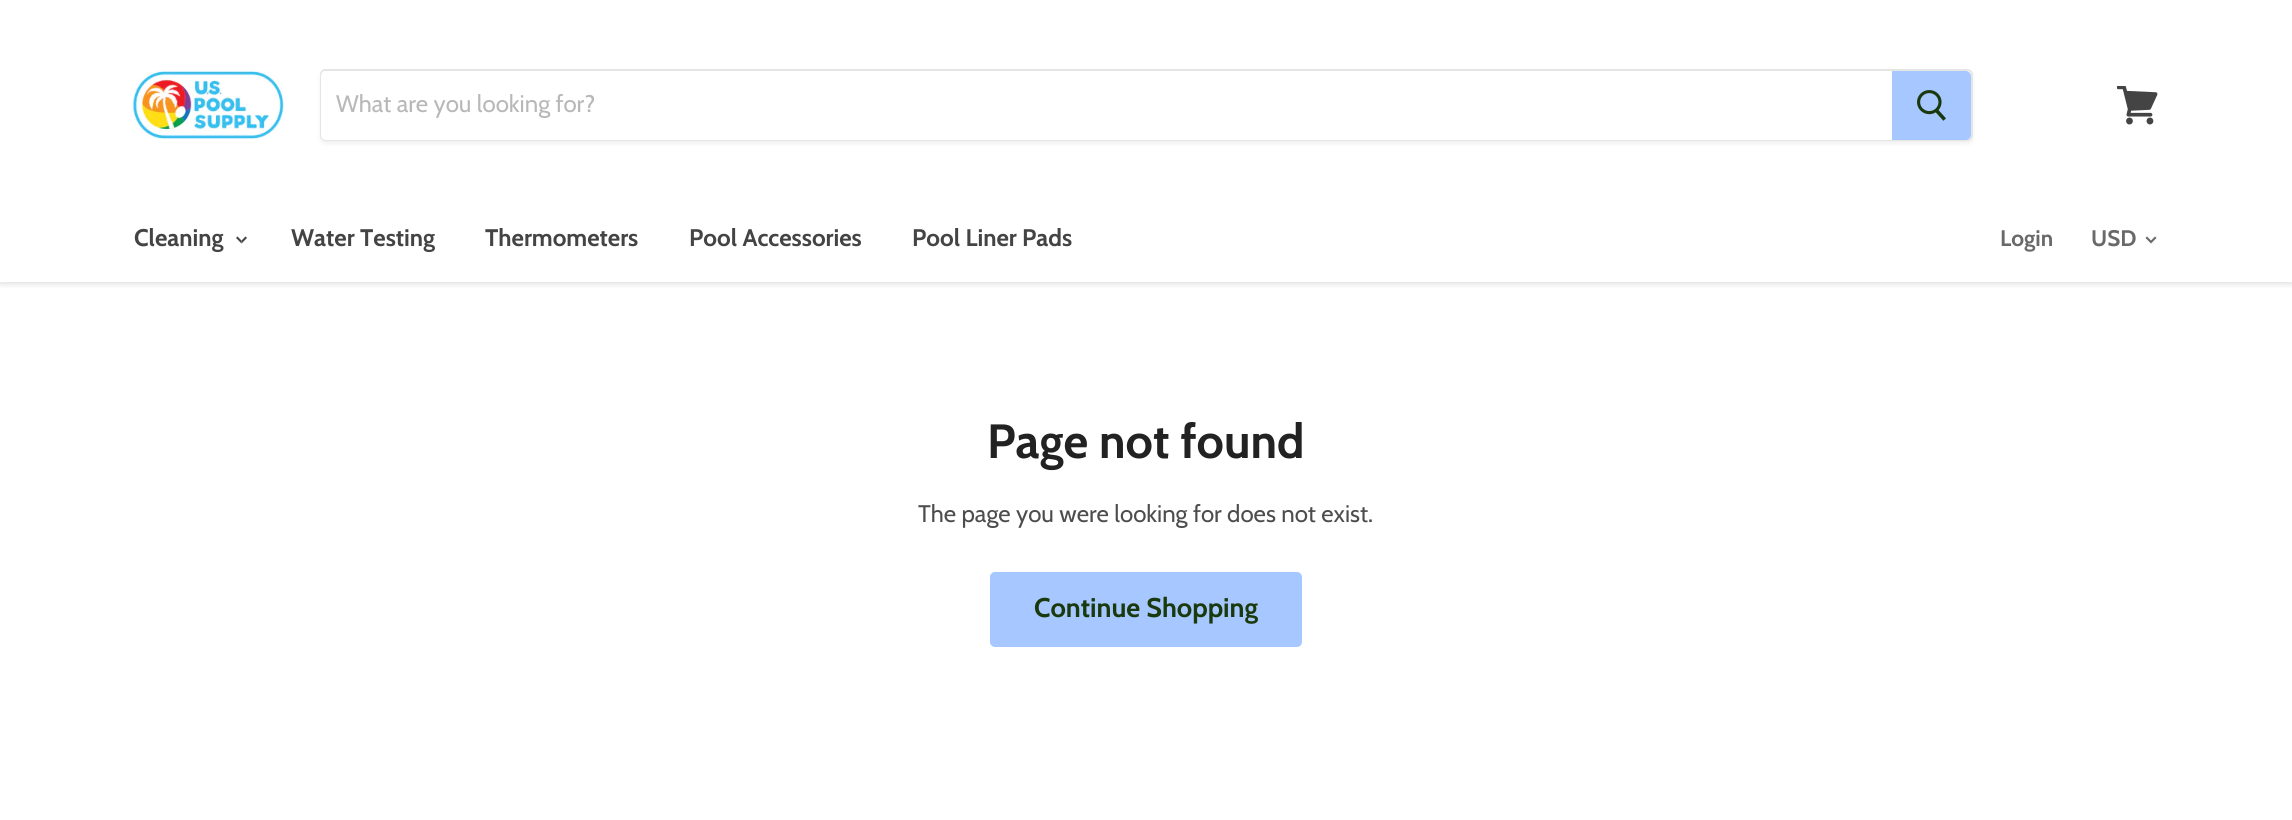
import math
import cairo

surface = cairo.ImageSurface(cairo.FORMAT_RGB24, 2292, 820)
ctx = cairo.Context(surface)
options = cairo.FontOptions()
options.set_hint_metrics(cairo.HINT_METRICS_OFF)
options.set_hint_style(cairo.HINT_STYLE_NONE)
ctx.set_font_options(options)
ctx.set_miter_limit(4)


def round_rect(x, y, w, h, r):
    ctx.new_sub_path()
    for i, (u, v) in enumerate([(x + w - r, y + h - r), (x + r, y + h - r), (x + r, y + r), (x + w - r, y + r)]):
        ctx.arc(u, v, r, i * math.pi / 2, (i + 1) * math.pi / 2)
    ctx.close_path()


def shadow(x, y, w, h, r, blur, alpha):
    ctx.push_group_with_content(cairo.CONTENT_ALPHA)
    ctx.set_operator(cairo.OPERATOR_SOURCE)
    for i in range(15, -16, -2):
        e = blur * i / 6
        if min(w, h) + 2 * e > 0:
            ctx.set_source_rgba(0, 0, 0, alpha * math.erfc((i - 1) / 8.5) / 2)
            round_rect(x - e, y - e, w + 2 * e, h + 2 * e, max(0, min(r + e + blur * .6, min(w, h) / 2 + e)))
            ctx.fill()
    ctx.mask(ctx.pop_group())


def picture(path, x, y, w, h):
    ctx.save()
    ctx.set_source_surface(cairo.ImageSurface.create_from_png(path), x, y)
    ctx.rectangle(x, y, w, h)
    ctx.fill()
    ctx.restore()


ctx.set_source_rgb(1, 1, 1)
ctx.paint()
ctx.save()
ctx.rectangle(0, 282, 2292, 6)
ctx.clip()
ctx.set_source_rgb(0.498, 0.498, 0.498)
shadow(0, 2, 2292, 282, 0, 3, 0.25)
ctx.restore()
picture("img1.png", 133, 71, 151, 68)
ctx.save()
ctx.set_fill_rule(cairo.FILL_RULE_EVEN_ODD)
ctx.new_path()
ctx.move_to(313, 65)
ctx.line_to(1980, 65)
ctx.line_to(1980, 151)
ctx.line_to(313, 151)
ctx.close_path()
ctx.move_to(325, 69)
ctx.line_to(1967, 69)
ctx.curve_to(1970.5, 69, 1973, 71.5, 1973, 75)
ctx.line_to(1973, 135)
ctx.curve_to(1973, 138.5, 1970.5, 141, 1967, 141)
ctx.line_to(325, 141)
ctx.curve_to(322, 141, 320, 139, 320, 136)
ctx.line_to(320, 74)
ctx.curve_to(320, 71, 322, 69, 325, 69)
ctx.close_path()
ctx.clip()
ctx.set_source_rgb(0.498, 0.498, 0.498)
shadow(320, 72, 1653, 72, 6, 2, 0.11)
ctx.restore()
ctx.new_path()
ctx.move_to(325, 70)
ctx.line_to(1967, 70)
ctx.curve_to(1970, 70, 1972, 72, 1972, 75)
ctx.line_to(1972, 135)
ctx.curve_to(1972, 138, 1970, 140, 1967, 140)
ctx.line_to(325, 140)
ctx.curve_to(323, 140, 321, 138, 321, 136)
ctx.line_to(321, 74)
ctx.curve_to(321, 72, 323, 70, 325, 70)
ctx.close_path()
ctx.set_source_rgba(0.498, 0.498, 0.498, 0.2)
ctx.stroke()
ctx.set_source_rgb(1, 1, 1)
ctx.new_path()
ctx.move_to(326, 71)
ctx.line_to(1892, 71)
ctx.line_to(1892, 140)
ctx.line_to(326, 140)
ctx.curve_to(323, 140, 321, 138, 321, 135)
ctx.line_to(321, 76)
ctx.curve_to(321, 73, 323, 71, 326, 71)
ctx.close_path()
ctx.fill()
ctx.select_font_face("Cabin")
ctx.set_font_size(24)
ctx.set_source_rgb(0.722, 0.722, 0.722)
ctx.move_to(336, 112)
ctx.show_text("What are you looking for?")
ctx.set_source_rgb(0.651, 0.78, 1)
ctx.new_path()
ctx.move_to(1893, 72)
ctx.line_to(1966, 72)
ctx.curve_to(1968, 72, 1970, 74, 1970, 76)
ctx.line_to(1970, 135)
ctx.curve_to(1970, 137, 1968, 139, 1966, 139)
ctx.line_to(1893, 139)
ctx.close_path()
ctx.fill_preserve()
ctx.stroke()
picture("img2.png", 1917, 90, 29, 31)
picture("img3.png", 2117, 86, 41, 39)
ctx.select_font_face("Cabin", cairo.FONT_SLANT_NORMAL, cairo.FONT_WEIGHT_BOLD)
ctx.set_source_rgb(0.267, 0.267, 0.267)
ctx.move_to(134, 246)
ctx.show_text("Cleaning")
picture("img4.png", 236, 236, 11, 8)
ctx.move_to(291, 246)
ctx.show_text("Water Testing")
ctx.move_to(485, 246)
ctx.show_text("Thermometers")
ctx.move_to(689, 246)
ctx.show_text("Pool Accessories")
ctx.move_to(912, 246)
ctx.show_text("Pool Liner Pads")
ctx.set_font_size(22.5)
ctx.set_source_rgb(0.412, 0.412, 0.412)
ctx.move_to(2000, 246)
ctx.show_text("Login")
ctx.move_to(2091, 246)
ctx.show_text("USD")
picture("img5.png", 2145, 236, 12, 8)
ctx.set_font_size(48)
ctx.set_source_rgb(0.133, 0.133, 0.133)
ctx.move_to(987, 458)
ctx.show_text("Page not found")
ctx.select_font_face("Cabin")
ctx.set_font_size(24)
ctx.set_source_rgb(0.302, 0.302, 0.302)
ctx.move_to(918, 522)
ctx.show_text("The page you were looking for does not exist.")
ctx.set_source_rgb(0.651, 0.78, 1)
round_rect(991, 573, 310, 73, 4)
ctx.fill_preserve()
ctx.stroke()
ctx.select_font_face("Cabin", cairo.FONT_SLANT_NORMAL, cairo.FONT_WEIGHT_BOLD)
ctx.set_font_size(27)
ctx.set_source_rgb(0.102, 0.224, 0.047)
ctx.move_to(1034, 617)
ctx.show_text("Continue Shopping")
surface.write_to_png("page.png")
